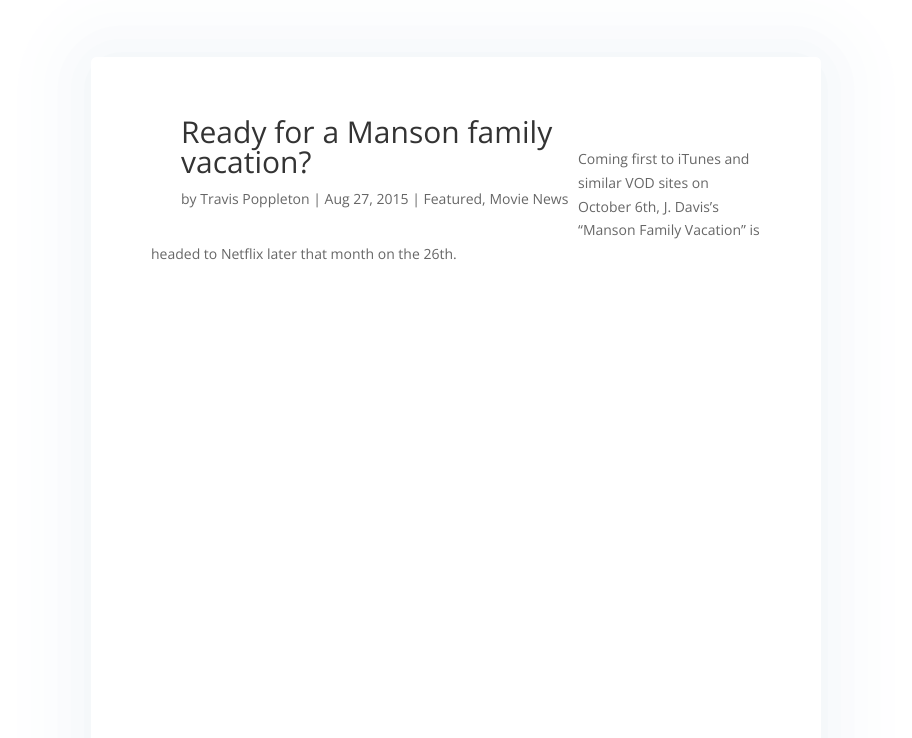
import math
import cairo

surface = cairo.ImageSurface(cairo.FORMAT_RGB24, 912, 738)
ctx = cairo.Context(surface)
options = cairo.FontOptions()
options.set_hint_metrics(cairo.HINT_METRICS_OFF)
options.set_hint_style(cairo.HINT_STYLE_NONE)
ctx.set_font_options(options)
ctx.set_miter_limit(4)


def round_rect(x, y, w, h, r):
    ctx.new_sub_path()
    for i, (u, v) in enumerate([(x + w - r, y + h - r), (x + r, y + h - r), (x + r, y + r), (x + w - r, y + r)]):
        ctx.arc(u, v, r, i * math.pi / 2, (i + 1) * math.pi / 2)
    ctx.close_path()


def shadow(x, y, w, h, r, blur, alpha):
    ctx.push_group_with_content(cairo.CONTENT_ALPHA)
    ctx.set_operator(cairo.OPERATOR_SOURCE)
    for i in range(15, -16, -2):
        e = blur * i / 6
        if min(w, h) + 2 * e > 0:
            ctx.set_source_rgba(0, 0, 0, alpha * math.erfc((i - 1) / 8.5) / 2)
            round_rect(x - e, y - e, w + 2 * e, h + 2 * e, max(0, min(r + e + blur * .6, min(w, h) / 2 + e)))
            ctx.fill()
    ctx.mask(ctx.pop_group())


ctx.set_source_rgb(1, 1, 1)
ctx.paint()
ctx.save()
ctx.set_fill_rule(cairo.FILL_RULE_EVEN_ODD)
ctx.new_path()
ctx.move_to(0, 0)
ctx.line_to(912, 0)
ctx.line_to(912, 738)
ctx.line_to(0, 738)
ctx.close_path()
ctx.move_to(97, 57)
ctx.line_to(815, 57)
ctx.curve_to(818.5, 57, 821, 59.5, 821, 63)
ctx.line_to(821, 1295)
ctx.curve_to(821, 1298.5, 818.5, 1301, 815, 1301)
ctx.line_to(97, 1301)
ctx.curve_to(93.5, 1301, 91, 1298.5, 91, 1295)
ctx.line_to(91, 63)
ctx.curve_to(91, 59.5, 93.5, 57, 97, 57)
ctx.close_path()
ctx.clip()
ctx.set_source_rgb(0.627, 0.745, 0.831)
shadow(91, 59, 730, 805, 6, 40, 0.22)
ctx.restore()
ctx.select_font_face("Open Sans")
ctx.set_font_size(30)
ctx.set_source_rgb(0.2, 0.2, 0.2)
ctx.move_to(181, 143)
ctx.show_text("Ready for a Manson family")
ctx.move_to(181, 173)
ctx.show_text("vacation?")
ctx.set_font_size(14)
ctx.set_source_rgb(0.4, 0.4, 0.4)
ctx.move_to(181, 204)
ctx.show_text("by Travis Poppleton | Aug 27, 2015 | Featured, Movie News")
ctx.move_to(578, 164)
ctx.show_text("Coming first to iTunes and")
ctx.move_to(578, 188)
ctx.show_text("similar VOD sites on")
ctx.move_to(578, 212)
ctx.show_text("October 6th, J. Davis’s")
ctx.move_to(578, 235)
ctx.show_text("“Manson Family Vacation” is")
ctx.move_to(151, 259)
ctx.show_text("headed to Netflix later that month on the 26th.")
surface.write_to_png("page.png")
